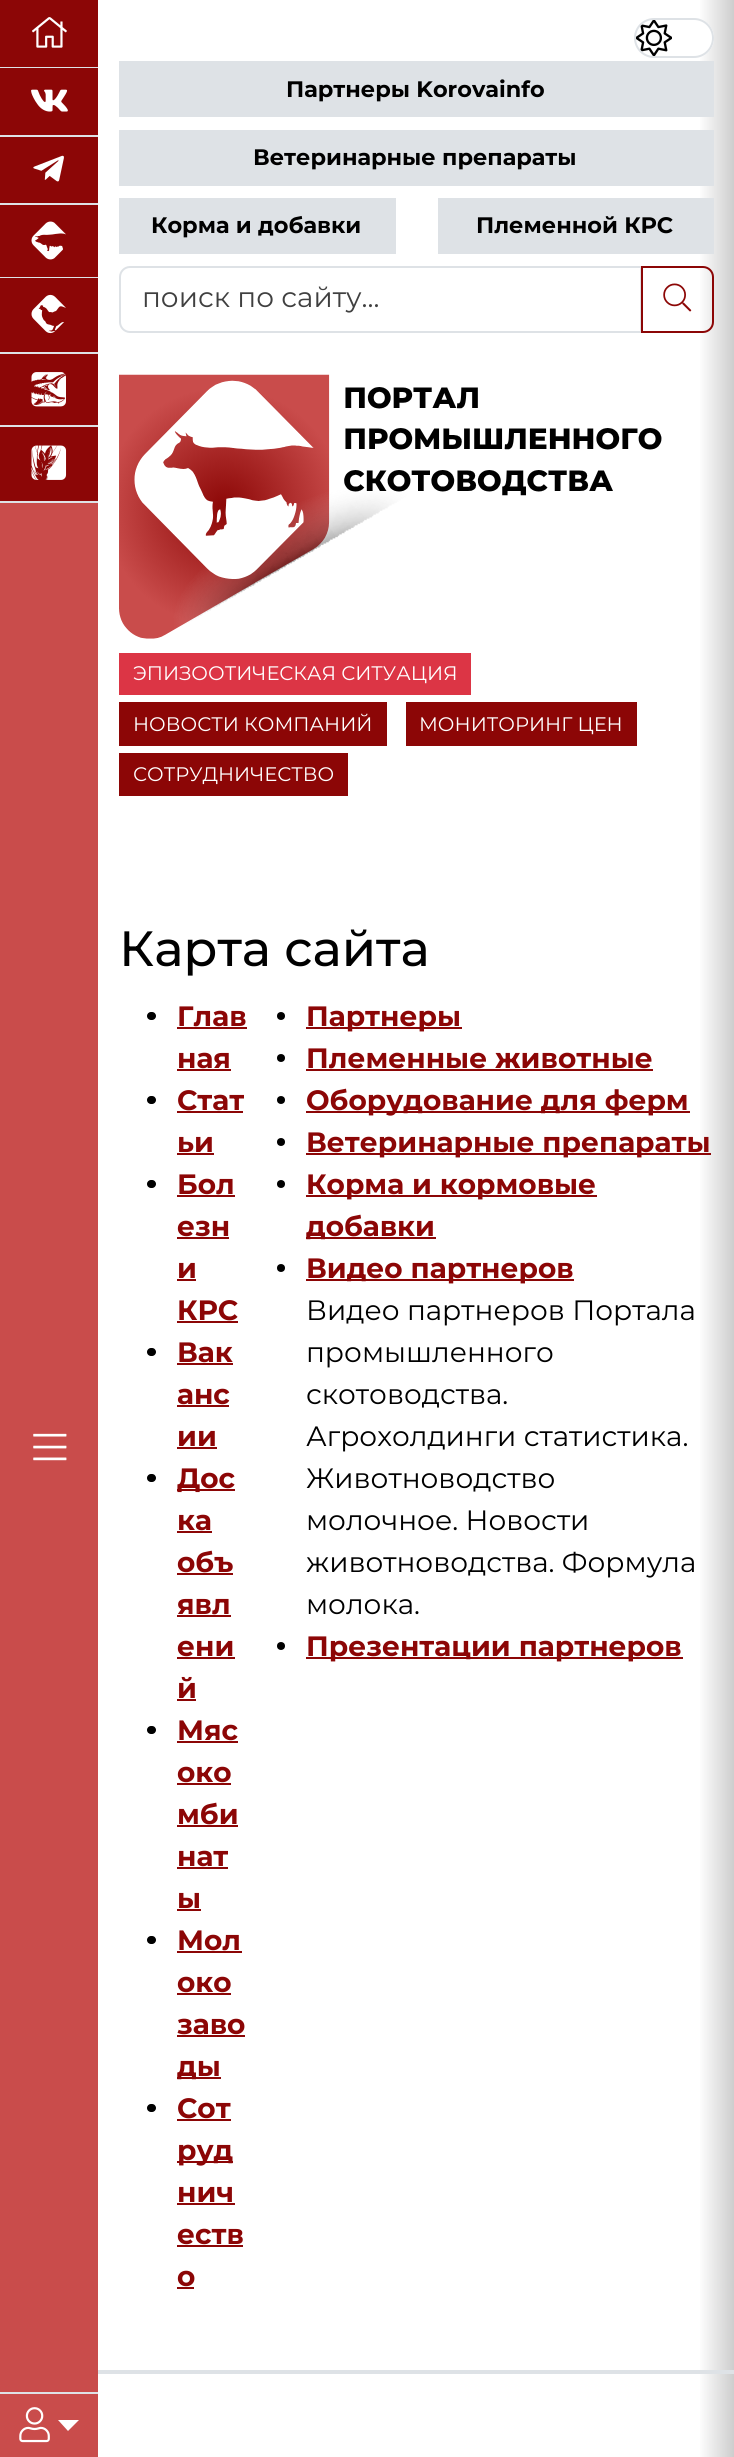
import math
import cairo

surface = cairo.ImageSurface(cairo.FORMAT_RGB24, 734, 2457)
ctx = cairo.Context(surface)
options = cairo.FontOptions()
options.set_hint_metrics(cairo.HINT_METRICS_OFF)
options.set_hint_style(cairo.HINT_STYLE_NONE)
ctx.set_font_options(options)
ctx.set_miter_limit(4)


def round_rect(x, y, w, h, r):
    ctx.new_sub_path()
    for i, (u, v) in enumerate([(x + w - r, y + h - r), (x + r, y + h - r), (x + r, y + r), (x + w - r, y + r)]):
        ctx.arc(u, v, r, i * math.pi / 2, (i + 1) * math.pi / 2)
    ctx.close_path()


def picture(path, x, y, w, h):
    ctx.save()
    ctx.set_source_surface(cairo.ImageSurface.create_from_png(path), x, y)
    ctx.rectangle(x, y, w, h)
    ctx.fill()
    ctx.restore()


ctx.set_source_rgb(1, 1, 1)
ctx.paint()
gradient = cairo.LinearGradient(0, 1229, 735, 1229)
gradient.add_color_stop_rgba(0, 0.8, 0.8, 0.8, 1)
gradient.add_color_stop_rgba(0.12, 1, 1, 1, 1)
gradient.add_color_stop_rgba(0.95, 1, 1, 1, 1)
gradient.add_color_stop_rgba(1, 0.8, 0.8, 0.8, 1)
ctx.set_source(gradient)
ctx.rectangle(700, 0, 34, 2457)
ctx.fill()
ctx.set_source_rgb(0.788, 0.298, 0.294)
ctx.rectangle(0, 503, 98, 1954)
ctx.fill()
ctx.set_source_rgb(0.549, 0.027, 0.024)
ctx.rectangle(0, 0, 98, 67)
ctx.fill()
ctx.set_source_rgb(0.871, 0.886, 0.902)
ctx.rectangle(0, 67, 98, 1)
ctx.fill()
picture("img1.png", 32, 17, 35, 31)
ctx.set_source_rgb(0.549, 0.027, 0.024)
ctx.rectangle(0, 68, 98, 67)
ctx.fill()
ctx.set_source_rgb(0.871, 0.886, 0.902)
ctx.rectangle(0, 135, 98, 2)
ctx.fill()
picture("img2.png", 31, 89, 37, 23)
ctx.set_source_rgb(0.549, 0.027, 0.024)
ctx.rectangle(0, 137, 98, 66)
ctx.fill()
ctx.set_source_rgb(0.871, 0.886, 0.902)
ctx.rectangle(0, 203, 98, 2)
ctx.fill()
picture("img3.png", 33, 155, 31, 27)
ctx.set_source_rgb(0.549, 0.027, 0.024)
ctx.rectangle(0, 205, 98, 72)
ctx.fill()
ctx.set_source_rgb(0.871, 0.886, 0.902)
ctx.rectangle(0, 277, 98, 1)
ctx.fill()
picture("img4.png", 31, 221, 35, 39)
ctx.set_source_rgb(0.549, 0.027, 0.024)
ctx.rectangle(0, 278, 98, 74)
ctx.fill()
ctx.set_source_rgb(0.871, 0.886, 0.902)
ctx.rectangle(0, 352, 98, 2)
ctx.fill()
picture("img5.png", 31, 294, 35, 40)
ctx.set_source_rgb(0.549, 0.027, 0.024)
ctx.rectangle(0, 354, 98, 71)
ctx.fill()
ctx.set_source_rgb(0.871, 0.886, 0.902)
ctx.rectangle(0, 425, 98, 2)
ctx.fill()
picture("img6.png", 31, 372, 35, 35)
ctx.set_source_rgb(0.549, 0.027, 0.024)
ctx.rectangle(0, 427, 98, 74)
ctx.fill()
ctx.set_source_rgb(0.871, 0.886, 0.902)
ctx.rectangle(0, 501, 98, 2)
ctx.fill()
picture("img7.png", 31, 445, 36, 35)
picture("img8.png", 33, 1433, 34, 28)
ctx.rectangle(0, 2392, 98, 2)
ctx.fill()
picture("img9.png", 19, 2407, 31, 36)
ctx.set_source_rgb(1, 1, 1)
ctx.new_path()
ctx.move_to(58, 2420)
ctx.line_to(79, 2420)
ctx.line_to(68, 2431)
ctx.close_path()
ctx.fill()
round_rect(634, 18, 80, 40, 20)
ctx.fill()
picture("img10.png", 636, 20, 36, 36)
round_rect(635, 19, 78, 38, 19)
ctx.set_source_rgb(0.871, 0.886, 0.902)
ctx.stroke()
ctx.rectangle(119, 61, 595, 56)
ctx.fill()
ctx.select_font_face("Montserrat", cairo.FONT_SLANT_NORMAL, cairo.FONT_WEIGHT_BOLD)
ctx.set_font_size(22.4)
ctx.set_source_rgb(0, 0, 0)
ctx.move_to(286, 97)
ctx.show_text("Партнеры Korovainfo")
ctx.set_source_rgb(0.871, 0.886, 0.902)
ctx.rectangle(119, 130, 595, 56)
ctx.fill()
ctx.set_source_rgb(0, 0, 0)
ctx.move_to(253, 165)
ctx.show_text("Ветеринарные препараты")
ctx.set_source_rgb(0.871, 0.886, 0.902)
ctx.rectangle(119, 198, 277, 56)
ctx.fill()
ctx.set_source_rgb(0, 0, 0)
ctx.move_to(151, 233)
ctx.show_text("Корма и добавки")
ctx.set_source_rgb(0.871, 0.886, 0.902)
ctx.rectangle(438, 198, 276, 56)
ctx.fill()
ctx.set_source_rgb(0, 0, 0)
ctx.move_to(476, 233)
ctx.show_text("Племенной КРС")
ctx.new_path()
ctx.move_to(130, 267)
ctx.line_to(641, 267)
ctx.line_to(641, 332)
ctx.line_to(130, 332)
ctx.curve_to(124.5, 332, 120, 327.5, 120, 322)
ctx.line_to(120, 277)
ctx.curve_to(120, 271.5, 124.5, 267, 130, 267)
ctx.close_path()
ctx.set_source_rgb(0.871, 0.886, 0.902)
ctx.stroke()
ctx.select_font_face("Montserrat")
ctx.set_font_size(28)
ctx.set_source_rgb(0.251, 0.251, 0.251)
ctx.move_to(142, 307)
ctx.show_text("поиск по сайту...")
ctx.new_path()
ctx.move_to(642, 267)
ctx.line_to(703, 267)
ctx.curve_to(708.5, 267, 713, 271.5, 713, 277)
ctx.line_to(713, 322)
ctx.curve_to(713, 327.5, 708.5, 332, 703, 332)
ctx.line_to(642, 332)
ctx.close_path()
ctx.set_source_rgb(0.549, 0.027, 0.024)
ctx.stroke()
picture("img11.png", 663, 283, 29, 29)
picture("img12.png", 119, 374, 543, 265)
ctx.set_source_rgb(0.863, 0.208, 0.271)
ctx.rectangle(119, 653, 352, 42)
ctx.fill()
ctx.set_font_size(19.6)
ctx.set_source_rgb(1, 1, 1)
ctx.move_to(133, 680)
ctx.show_text("ЭПИЗООТИЧЕСКАЯ СИТУАЦИЯ")
ctx.set_source_rgb(0.549, 0.027, 0.024)
ctx.rectangle(119, 702, 268, 44)
ctx.fill()
ctx.set_source_rgb(1, 1, 1)
ctx.move_to(133, 731)
ctx.show_text("НОВОСТИ КОМПАНИЙ")
ctx.set_source_rgb(0.549, 0.027, 0.024)
ctx.rectangle(406, 702, 231, 44)
ctx.fill()
ctx.set_source_rgb(1, 1, 1)
ctx.move_to(419, 731)
ctx.show_text("МОНИТОРИНГ ЦЕН")
ctx.set_source_rgb(0.549, 0.027, 0.024)
ctx.rectangle(119, 753, 229, 43)
ctx.fill()
ctx.set_source_rgb(1, 1, 1)
ctx.move_to(133, 781)
ctx.show_text("СОТРУДНИЧЕСТВО")
ctx.select_font_face("Montserrat Medium")
ctx.set_font_size(49.5)
ctx.set_source_rgb(0, 0, 0)
ctx.move_to(119, 966)
ctx.show_text("Карта сайта")
round_rect(147, 1012, 9, 8, 4)
ctx.fill()
ctx.select_font_face("Montserrat", cairo.FONT_SLANT_NORMAL, cairo.FONT_WEIGHT_BOLD)
ctx.set_font_size(28)
ctx.set_source_rgb(0.549, 0.027, 0.024)
ctx.move_to(177, 1026)
ctx.show_text("Глав")
ctx.rectangle(177, 1027, 70, 2)
ctx.fill()
ctx.move_to(177, 1068)
ctx.show_text("ная")
ctx.rectangle(177, 1069, 54, 2)
ctx.fill()
ctx.set_source_rgb(0, 0, 0)
round_rect(147, 1096, 9, 8, 4)
ctx.fill()
ctx.set_source_rgb(0.549, 0.027, 0.024)
ctx.move_to(177, 1110)
ctx.show_text("Стат")
ctx.rectangle(177, 1111, 66, 2)
ctx.fill()
ctx.move_to(177, 1152)
ctx.show_text("ьи")
ctx.rectangle(177, 1153, 37, 2)
ctx.fill()
ctx.set_source_rgb(0, 0, 0)
round_rect(147, 1180, 9, 8, 4)
ctx.fill()
ctx.set_source_rgb(0.549, 0.027, 0.024)
ctx.move_to(177, 1194)
ctx.show_text("Бол")
ctx.rectangle(177, 1195, 58, 2)
ctx.fill()
ctx.move_to(177, 1236)
ctx.show_text("езн")
ctx.rectangle(177, 1237, 52, 2)
ctx.fill()
ctx.move_to(177, 1278)
ctx.show_text("и")
ctx.rectangle(177, 1279, 19, 2)
ctx.fill()
ctx.move_to(177, 1320)
ctx.show_text("КРС")
ctx.rectangle(177, 1321, 61, 2)
ctx.fill()
ctx.set_source_rgb(0, 0, 0)
round_rect(147, 1348, 9, 8, 4)
ctx.fill()
ctx.set_source_rgb(0.549, 0.027, 0.024)
ctx.move_to(177, 1362)
ctx.show_text("Вак")
ctx.rectangle(177, 1363, 56, 2)
ctx.fill()
ctx.move_to(177, 1404)
ctx.show_text("анс")
ctx.rectangle(177, 1405, 52, 2)
ctx.fill()
ctx.move_to(177, 1446)
ctx.show_text("ии")
ctx.rectangle(177, 1447, 40, 2)
ctx.fill()
ctx.set_source_rgb(0, 0, 0)
round_rect(147, 1474, 9, 8, 4)
ctx.fill()
ctx.set_source_rgb(0.549, 0.027, 0.024)
ctx.rectangle(177, 1489, 58, 2)
ctx.fill()
ctx.move_to(177, 1488)
ctx.show_text("Дос")
ctx.move_to(177, 1530)
ctx.show_text("ка")
ctx.rectangle(177, 1531, 35, 2)
ctx.fill()
ctx.move_to(177, 1572)
ctx.show_text("объ")
ctx.rectangle(177, 1573, 56, 2)
ctx.fill()
ctx.move_to(177, 1614)
ctx.show_text("явл")
ctx.rectangle(177, 1615, 54, 2)
ctx.fill()
ctx.move_to(177, 1656)
ctx.show_text("ени")
ctx.rectangle(177, 1657, 58, 2)
ctx.fill()
ctx.move_to(177, 1698)
ctx.show_text("й")
ctx.rectangle(177, 1699, 19, 2)
ctx.fill()
ctx.set_source_rgb(0, 0, 0)
round_rect(147, 1726, 9, 8, 4)
ctx.fill()
ctx.set_source_rgb(0.549, 0.027, 0.024)
ctx.move_to(177, 1740)
ctx.show_text("Мяс")
ctx.rectangle(177, 1741, 61, 2)
ctx.fill()
ctx.move_to(177, 1782)
ctx.show_text("око")
ctx.rectangle(177, 1783, 54, 2)
ctx.fill()
ctx.move_to(177, 1824)
ctx.show_text("мби")
ctx.rectangle(177, 1825, 61, 2)
ctx.fill()
ctx.move_to(177, 1866)
ctx.show_text("нат")
ctx.rectangle(177, 1867, 51, 2)
ctx.fill()
ctx.move_to(177, 1908)
ctx.show_text("ы")
ctx.rectangle(177, 1909, 24, 2)
ctx.fill()
ctx.set_source_rgb(0, 0, 0)
round_rect(147, 1936, 9, 8, 4)
ctx.fill()
ctx.set_source_rgb(0.549, 0.027, 0.024)
ctx.move_to(177, 1950)
ctx.show_text("Мол")
ctx.rectangle(177, 1951, 65, 2)
ctx.fill()
ctx.move_to(177, 1992)
ctx.show_text("око")
ctx.rectangle(177, 1993, 54, 2)
ctx.fill()
ctx.move_to(177, 2034)
ctx.show_text("заво")
ctx.rectangle(177, 2035, 68, 2)
ctx.fill()
ctx.rectangle(177, 2077, 44, 2)
ctx.fill()
ctx.move_to(177, 2076)
ctx.show_text("ды")
ctx.set_source_rgb(0, 0, 0)
round_rect(147, 2104, 9, 8, 4)
ctx.fill()
ctx.set_source_rgb(0.549, 0.027, 0.024)
ctx.move_to(177, 2118)
ctx.show_text("Сот")
ctx.rectangle(177, 2119, 54, 2)
ctx.fill()
ctx.rectangle(177, 2161, 56, 2)
ctx.fill()
ctx.move_to(177, 2160)
ctx.show_text("руд")
ctx.move_to(177, 2202)
ctx.show_text("нич")
ctx.rectangle(177, 2203, 58, 2)
ctx.fill()
ctx.move_to(177, 2244)
ctx.show_text("еств")
ctx.rectangle(177, 2245, 66, 2)
ctx.fill()
ctx.move_to(177, 2286)
ctx.show_text("о")
ctx.rectangle(177, 2287, 17, 2)
ctx.fill()
ctx.set_source_rgb(0, 0, 0)
ctx.arc(281, 1016, 4, 0, 2 * math.pi)
ctx.fill()
ctx.set_source_rgb(0.549, 0.027, 0.024)
ctx.rectangle(306, 1027, 156, 2)
ctx.fill()
ctx.move_to(306, 1026)
ctx.show_text("Партнеры")
ctx.set_source_rgb(0, 0, 0)
ctx.new_path()
ctx.arc(281, 1058, 4, 0, 2 * math.pi)
ctx.fill()
ctx.set_source_rgb(0.549, 0.027, 0.024)
ctx.move_to(306, 1068)
ctx.show_text("Племенные животные")
ctx.rectangle(306, 1069, 347, 2)
ctx.fill()
ctx.set_source_rgb(0, 0, 0)
ctx.arc(281, 1100, 4, 0, 2 * math.pi)
ctx.fill()
ctx.set_source_rgb(0.549, 0.027, 0.024)
ctx.rectangle(306, 1111, 384, 2)
ctx.fill()
ctx.move_to(306, 1110)
ctx.show_text("Оборудование для ферм")
ctx.set_source_rgb(0, 0, 0)
ctx.new_path()
ctx.arc(281, 1142, 4, 0, 2 * math.pi)
ctx.fill()
ctx.set_source_rgb(0.549, 0.027, 0.024)
ctx.rectangle(306, 1153, 405, 2)
ctx.fill()
ctx.move_to(306, 1152)
ctx.show_text("Ветеринарные препараты")
ctx.set_source_rgb(0, 0, 0)
ctx.new_path()
ctx.arc(281, 1184, 4, 0, 2 * math.pi)
ctx.fill()
ctx.set_source_rgb(0.549, 0.027, 0.024)
ctx.rectangle(306, 1195, 291, 2)
ctx.fill()
ctx.move_to(306, 1194)
ctx.show_text("Корма и кормовые")
ctx.rectangle(306, 1237, 130, 2)
ctx.fill()
ctx.move_to(306, 1236)
ctx.show_text("добавки")
ctx.set_source_rgb(0, 0, 0)
ctx.new_path()
ctx.arc(281, 1268, 4, 0, 2 * math.pi)
ctx.fill()
ctx.set_source_rgb(0.549, 0.027, 0.024)
ctx.rectangle(306, 1279, 268, 2)
ctx.fill()
ctx.move_to(306, 1278)
ctx.show_text("Видео партнеров")
ctx.select_font_face("Montserrat")
ctx.set_source_rgb(0, 0, 0)
ctx.move_to(306, 1320)
ctx.show_text("Видео партнеров Портала")
ctx.move_to(306, 1362)
ctx.show_text("промышленного")
ctx.move_to(306, 1404)
ctx.show_text("скотоводства.")
ctx.move_to(306, 1446)
ctx.show_text("Агрохолдинги статистика.")
ctx.move_to(306, 1488)
ctx.show_text("Животноводство")
ctx.move_to(306, 1530)
ctx.show_text("молочное. Новости")
ctx.move_to(306, 1572)
ctx.show_text("животноводства. Формула")
ctx.move_to(306, 1614)
ctx.show_text("молока.")
ctx.new_path()
ctx.arc(281, 1646, 4, 0, 2 * math.pi)
ctx.fill()
ctx.set_source_rgb(0.549, 0.027, 0.024)
ctx.rectangle(306, 1657, 377, 2)
ctx.fill()
ctx.select_font_face("Montserrat", cairo.FONT_SLANT_NORMAL, cairo.FONT_WEIGHT_BOLD)
ctx.move_to(306, 1656)
ctx.show_text("Презентации партнеров")
ctx.set_source_rgb(0.871, 0.886, 0.902)
ctx.rectangle(98, 2370, 636, 4)
ctx.fill()
surface.write_to_png("page.png")
